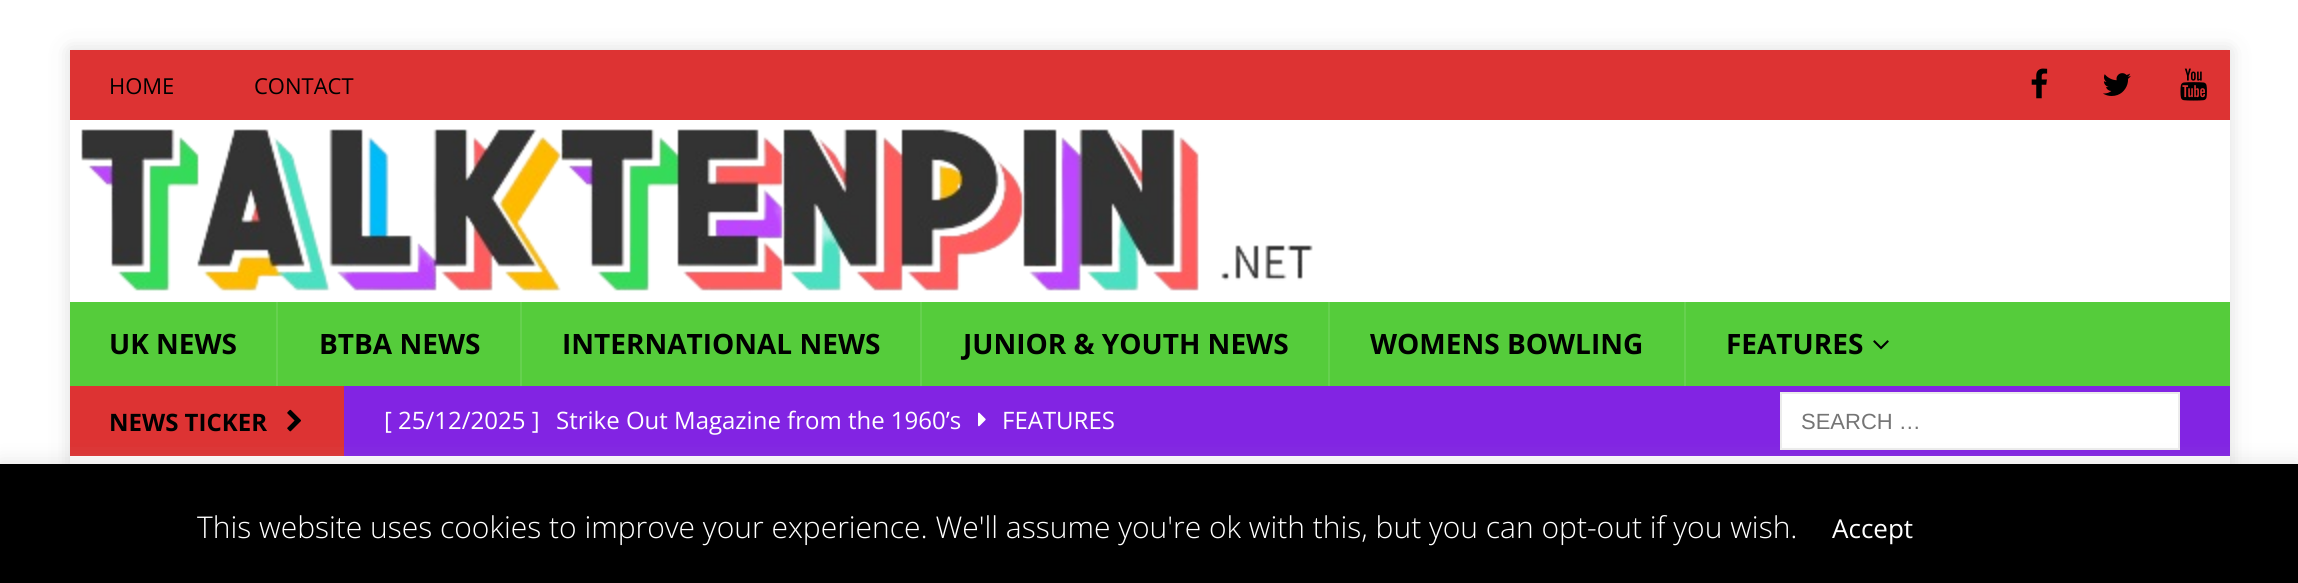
import math
import cairo

surface = cairo.ImageSurface(cairo.FORMAT_RGB24, 2298, 583)
ctx = cairo.Context(surface)
options = cairo.FontOptions()
options.set_hint_metrics(cairo.HINT_METRICS_OFF)
options.set_hint_style(cairo.HINT_STYLE_NONE)
ctx.set_font_options(options)
ctx.set_miter_limit(4)


def round_rect(x, y, w, h, r):
    ctx.new_sub_path()
    for i, (u, v) in enumerate([(x + w - r, y + h - r), (x + r, y + h - r), (x + r, y + r), (x + w - r, y + r)]):
        ctx.arc(u, v, r, i * math.pi / 2, (i + 1) * math.pi / 2)
    ctx.close_path()


def shadow(x, y, w, h, r, blur, alpha):
    ctx.push_group_with_content(cairo.CONTENT_ALPHA)
    ctx.set_operator(cairo.OPERATOR_SOURCE)
    for i in range(15, -16, -2):
        e = blur * i / 6
        if min(w, h) + 2 * e > 0:
            ctx.set_source_rgba(0, 0, 0, alpha * math.erfc((i - 1) / 8.5) / 2)
            round_rect(x - e, y - e, w + 2 * e, h + 2 * e, max(0, min(r + e + blur * .6, min(w, h) / 2 + e)))
            ctx.fill()
    ctx.mask(ctx.pop_group())


def picture(path, x, y, w, h):
    ctx.save()
    ctx.set_source_surface(cairo.ImageSurface.create_from_png(path), x, y)
    ctx.rectangle(x, y, w, h)
    ctx.fill()
    ctx.restore()


ctx.set_source_rgb(1, 1, 1)
ctx.paint()
ctx.save()
ctx.set_fill_rule(cairo.FILL_RULE_EVEN_ODD)
ctx.new_path()
ctx.move_to(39, 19)
ctx.line_to(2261, 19)
ctx.line_to(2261, 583)
ctx.line_to(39, 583)
ctx.close_path()
ctx.move_to(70, 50)
ctx.line_to(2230, 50)
ctx.line_to(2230, 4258)
ctx.line_to(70, 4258)
ctx.close_path()
ctx.clip()
ctx.set_source_rgb(0.196, 0.196, 0.196)
shadow(70, 50, 2160, 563, 0, 10, 0.17)
ctx.restore()
ctx.set_source_rgb(0.867, 0.2, 0.2)
ctx.rectangle(70, 50, 2160, 70)
ctx.fill()
ctx.select_font_face("Open Sans")
ctx.set_font_size(22)
ctx.set_source_rgb(0, 0, 0)
ctx.move_to(109, 94)
ctx.show_text("HOME")
ctx.move_to(254, 94)
ctx.show_text("CONTACT")
picture("img1.png", 2031, 68, 17, 31)
picture("img2.png", 2103, 73, 28, 23)
picture("img3.png", 2180, 68, 27, 33)
picture("img4.png", 81, 129, 1232, 164)
ctx.set_source_rgb(0.333, 0.8, 0.231)
ctx.rectangle(70, 302, 2160, 84)
ctx.fill()
ctx.select_font_face("Open Sans", cairo.FONT_SLANT_NORMAL, cairo.FONT_WEIGHT_BOLD)
ctx.set_font_size(28)
ctx.set_source_rgb(0, 0, 0)
ctx.move_to(109, 354)
ctx.show_text("UK NEWS")
ctx.set_source_rgb(0.4, 0.82, 0.31)
ctx.rectangle(276, 302, 2, 84)
ctx.fill()
ctx.set_source_rgb(0, 0, 0)
ctx.move_to(319, 354)
ctx.show_text("BTBA NEWS")
ctx.set_source_rgb(0.4, 0.82, 0.31)
ctx.rectangle(520, 302, 2, 84)
ctx.fill()
ctx.set_source_rgb(0, 0, 0)
ctx.move_to(562, 354)
ctx.show_text("INTERNATIONAL NEWS")
ctx.set_source_rgb(0.4, 0.82, 0.31)
ctx.rectangle(920, 302, 2, 84)
ctx.fill()
ctx.set_source_rgb(0, 0, 0)
ctx.move_to(963, 354)
ctx.show_text("JUNIOR & YOUTH NEWS")
ctx.set_source_rgb(0.4, 0.82, 0.31)
ctx.rectangle(1328, 302, 2, 84)
ctx.fill()
ctx.set_source_rgb(0, 0, 0)
ctx.move_to(1370, 354)
ctx.show_text("WOMENS BOWLING")
ctx.set_source_rgb(0.4, 0.82, 0.31)
ctx.rectangle(1684, 302, 2, 84)
ctx.fill()
ctx.set_source_rgb(0, 0, 0)
ctx.move_to(1726, 354)
ctx.show_text("FEATURES")
picture("img5.png", 1873, 340, 16, 10)
ctx.set_source_rgb(0.51, 0.141, 0.89)
ctx.rectangle(344, 386, 1886, 70)
ctx.fill()
ctx.set_source_rgb(0.867, 0.2, 0.2)
ctx.rectangle(70, 386, 274, 70)
ctx.fill()
ctx.set_font_size(24)
ctx.set_source_rgb(0, 0, 0)
ctx.move_to(109, 431)
ctx.show_text("NEWS TICKER")
picture("img6.png", 287, 409, 14, 23)
ctx.select_font_face("Open Sans")
ctx.set_source_rgb(1, 1, 1)
ctx.move_to(384, 429)
ctx.show_text("[ 25/12/2025 ]")
ctx.move_to(556, 429)
ctx.show_text("Strike Out Magazine from the 1960’s")
picture("img7.png", 978, 412, 8, 15)
ctx.move_to(1002, 429)
ctx.show_text("FEATURES")
ctx.rectangle(1781, 393, 398, 56)
ctx.fill_preserve()
ctx.set_source_rgb(0.922, 0.922, 0.922)
ctx.stroke()
ctx.select_font_face("Liberation Sans")
ctx.set_font_size(22)
ctx.set_source_rgb(0.459, 0.459, 0.459)
ctx.move_to(1801, 429)
ctx.show_text("SEARCH …")
ctx.set_source_rgb(0.675, 0.671, 0.671)
shadow(0, 462, 2298, 120, 0, 10, 0.3)
ctx.set_source_rgb(0, 0, 0)
ctx.rectangle(0, 464, 2298, 119)
ctx.fill()
ctx.select_font_face("Open Sans Light")
ctx.set_font_size(30)
ctx.set_source_rgb(1, 1, 1)
ctx.move_to(197, 538)
ctx.show_text("This website uses cookies to improve your experience. We'll assume you're ok with this, but you can opt-out if you wish.")
ctx.select_font_face("Open Sans")
ctx.set_font_size(26)
ctx.move_to(1832, 538)
ctx.show_text("Accept")
surface.write_to_png("page.png")
